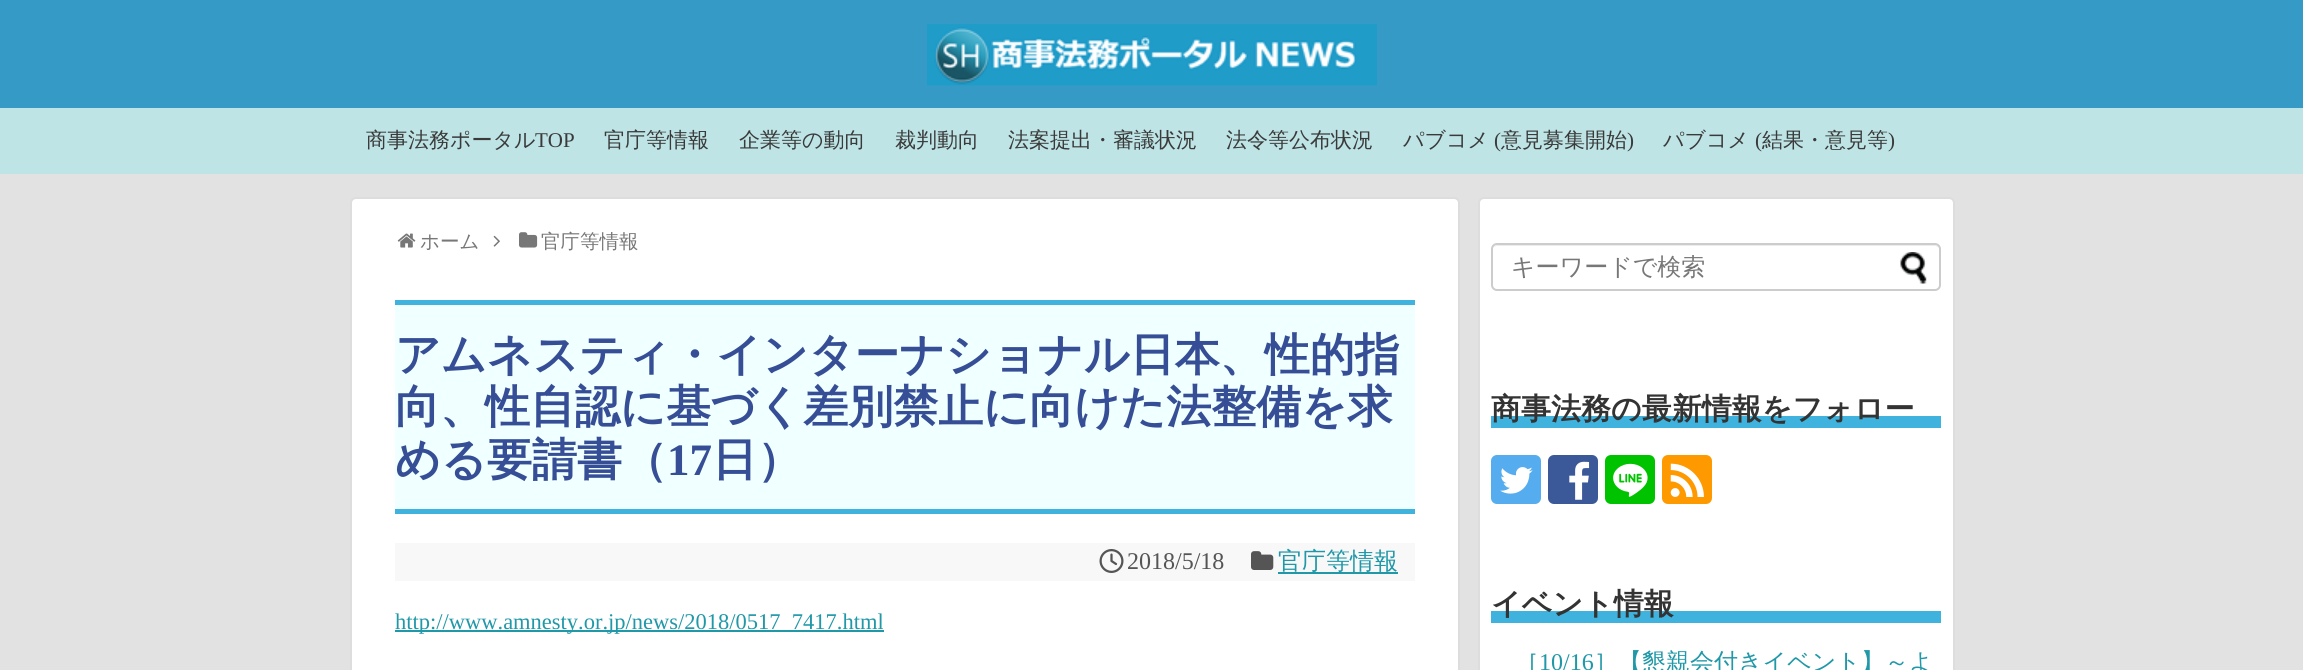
import math
import cairo

surface = cairo.ImageSurface(cairo.FORMAT_RGB24, 2303, 670)
ctx = cairo.Context(surface)
options = cairo.FontOptions()
options.set_hint_metrics(cairo.HINT_METRICS_OFF)
options.set_hint_style(cairo.HINT_STYLE_NONE)
ctx.set_font_options(options)
ctx.set_miter_limit(4)


def round_rect(x, y, w, h, r):
    ctx.new_sub_path()
    for i, (u, v) in enumerate([(x + w - r, y + h - r), (x + r, y + h - r), (x + r, y + r), (x + w - r, y + r)]):
        ctx.arc(u, v, r, i * math.pi / 2, (i + 1) * math.pi / 2)
    ctx.close_path()


def picture(path, x, y, w, h):
    ctx.save()
    ctx.set_source_surface(cairo.ImageSurface.create_from_png(path), x, y)
    ctx.rectangle(x, y, w, h)
    ctx.fill()
    ctx.restore()


ctx.set_source_rgb(0.886, 0.886, 0.886)
ctx.paint()
ctx.set_source_rgb(0.212, 0.604, 0.776)
ctx.rectangle(0, 0, 2303, 108)
ctx.fill()
picture("img1.png", 927, 24, 450, 62)
ctx.set_source_rgb(0.745, 0.894, 0.898)
ctx.rectangle(0, 108, 2303, 66)
ctx.fill()
ctx.select_font_face("WenQuanYi Zen Hei Medium")
ctx.set_font_size(21)
ctx.set_source_rgb(0.227, 0.227, 0.227)
ctx.move_to(366, 147)
ctx.show_text("商事法務ポータル")
ctx.select_font_face("Liberation Serif")
ctx.move_to(535, 147)
ctx.show_text("TOP")
ctx.select_font_face("WenQuanYi Zen Hei Medium")
ctx.move_to(604, 147)
ctx.show_text("官庁等情報")
ctx.move_to(739, 147)
ctx.show_text("企業等の動向")
ctx.move_to(895, 147)
ctx.show_text("裁判動向")
ctx.move_to(1008, 147)
ctx.show_text("法案提出・審議状況")
ctx.move_to(1226, 147)
ctx.show_text("法令等公布状況")
ctx.move_to(1403, 147)
ctx.show_text("パブコメ")
ctx.select_font_face("Liberation Serif")
ctx.move_to(1494, 147)
ctx.show_text("(")
ctx.select_font_face("WenQuanYi Zen Hei Medium")
ctx.move_to(1501, 147)
ctx.show_text("意見募集開始")
ctx.select_font_face("Liberation Serif")
ctx.move_to(1627, 147)
ctx.show_text(")")
ctx.select_font_face("WenQuanYi Zen Hei Medium")
ctx.move_to(1663, 147)
ctx.show_text("パブコメ")
ctx.select_font_face("Liberation Serif")
ctx.move_to(1755, 147)
ctx.show_text("(")
ctx.select_font_face("WenQuanYi Zen Hei Medium")
ctx.move_to(1762, 147)
ctx.show_text("結果・意見等")
ctx.select_font_face("Liberation Serif")
ctx.move_to(1888, 147)
ctx.show_text(")")
ctx.set_source_rgb(1, 1, 1)
round_rect(351, 198, 1108, 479, 5)
ctx.fill_preserve()
ctx.set_source_rgb(0.867, 0.867, 0.867)
ctx.stroke()
picture("img2.png", 397, 233, 19, 15)
ctx.select_font_face("WenQuanYi Zen Hei Medium")
ctx.set_font_size(19.5)
ctx.set_source_rgb(0.467, 0.467, 0.467)
ctx.move_to(420, 248)
ctx.show_text("ホーム")
picture("img3.png", 493, 235, 7, 12)
picture("img4.png", 519, 232, 19, 16)
ctx.move_to(541, 248)
ctx.show_text("官庁等情報")
ctx.set_source_rgb(0.941, 1, 1)
ctx.rectangle(395, 305, 1020, 204)
ctx.fill()
ctx.set_source_rgb(0.247, 0.702, 0.867)
ctx.rectangle(395, 300, 1020, 5)
ctx.fill()
ctx.rectangle(395, 509, 1020, 5)
ctx.fill()
ctx.select_font_face("WenQuanYi Zen Hei", cairo.FONT_SLANT_NORMAL, cairo.FONT_WEIGHT_BOLD)
ctx.set_font_size(45)
ctx.set_source_rgb(0.212, 0.306, 0.588)
ctx.move_to(395, 370)
ctx.show_text("アムネスティ・インターナショナル日本、性的指")
ctx.move_to(395, 422)
ctx.show_text("向、性自認に基づく差別禁止に向けた法整備を求")
ctx.move_to(395, 475)
ctx.show_text("める要請書（")
ctx.select_font_face("Liberation Serif", cairo.FONT_SLANT_NORMAL, cairo.FONT_WEIGHT_BOLD)
ctx.move_to(667, 475)
ctx.show_text("17")
ctx.select_font_face("WenQuanYi Zen Hei", cairo.FONT_SLANT_NORMAL, cairo.FONT_WEIGHT_BOLD)
ctx.move_to(712, 475)
ctx.show_text("日）")
ctx.set_source_rgb(0.969, 0.969, 0.969)
ctx.rectangle(395, 543, 1020, 38)
ctx.fill()
picture("img5.png", 1099, 549, 25, 24)
ctx.select_font_face("Liberation Serif")
ctx.set_font_size(24)
ctx.set_source_rgb(0.333, 0.333, 0.333)
ctx.move_to(1127, 569)
ctx.show_text("2018/5/18")
picture("img6.png", 1251, 551, 23, 19)
ctx.set_source_rgb(0.125, 0.596, 0.659)
ctx.rectangle(1278, 572, 120, 2)
ctx.fill()
ctx.select_font_face("WenQuanYi Zen Hei Medium")
ctx.move_to(1278, 569)
ctx.show_text("官庁等情報")
ctx.rectangle(395, 630, 489, 2)
ctx.fill()
ctx.select_font_face("Liberation Serif")
ctx.set_font_size(22.5)
ctx.move_to(395, 629)
ctx.show_text("http://www.amnesty.or.jp/news/2018/0517_7417.html")
ctx.set_source_rgb(1, 1, 1)
round_rect(1479, 198, 475, 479, 5)
ctx.fill_preserve()
ctx.set_source_rgb(0.867, 0.867, 0.867)
ctx.stroke()
ctx.set_source_rgb(0.925, 0.925, 0.925)
ctx.new_path()
ctx.move_to(1497, 246)
ctx.line_to(1935, 246)
ctx.curve_to(1937, 246, 1940, 248, 1940, 250)
ctx.curve_to(1940, 247, 1938, 245, 1935, 245)
ctx.line_to(1498, 245)
ctx.curve_to(1496, 245, 1495, 246, 1494, 247)
ctx.close_path()
ctx.fill()
round_rect(1492, 244, 448, 46, 5)
ctx.set_source_rgb(0.8, 0.8, 0.8)
ctx.stroke()
ctx.select_font_face("WenQuanYi Zen Hei Medium")
ctx.set_font_size(24)
ctx.set_source_rgb(0.467, 0.467, 0.467)
ctx.move_to(1511, 275)
ctx.show_text("キーワードで検索")
picture("img7.png", 1900, 252, 27, 32)
ctx.set_source_rgb(0.247, 0.702, 0.867)
ctx.rectangle(1491, 416, 450, 12)
ctx.fill()
ctx.select_font_face("WenQuanYi Zen Hei", cairo.FONT_SLANT_NORMAL, cairo.FONT_WEIGHT_BOLD)
ctx.set_font_size(30)
ctx.set_source_rgb(0.2, 0.2, 0.2)
ctx.move_to(1491, 419)
ctx.show_text("商事法務の最新情報をフォロー")
ctx.set_source_rgb(0.333, 0.675, 0.933)
round_rect(1491, 455, 50, 49, 6)
ctx.fill()
picture("img8.png", 1500, 467, 33, 27)
ctx.set_source_rgb(0.231, 0.349, 0.596)
round_rect(1548, 455, 50, 49, 6)
ctx.fill()
picture("img9.png", 1569, 461, 21, 39)
ctx.set_source_rgb(0, 0.765, 0)
round_rect(1605, 455, 50, 49, 6)
ctx.fill()
picture("img10.png", 1613, 463, 35, 34)
ctx.set_source_rgb(0.996, 0.6, 0)
round_rect(1662, 455, 50, 49, 6)
ctx.fill()
picture("img11.png", 1670, 463, 34, 34)
ctx.set_source_rgb(0.247, 0.702, 0.867)
ctx.rectangle(1491, 611, 450, 12)
ctx.fill()
ctx.set_source_rgb(0.2, 0.2, 0.2)
ctx.move_to(1491, 614)
ctx.show_text("イベント情報")
ctx.select_font_face("WenQuanYi Zen Hei Medium")
ctx.set_font_size(24)
ctx.set_source_rgb(0.125, 0.596, 0.659)
ctx.move_to(1515, 670)
ctx.show_text("［")
ctx.select_font_face("Liberation Serif")
ctx.move_to(1539, 670)
ctx.show_text("10/16")
ctx.select_font_face("WenQuanYi Zen Hei Medium")
ctx.move_to(1594, 670)
ctx.show_text("］【懇親会付きイベント】～よ")
surface.write_to_png("page.png")
